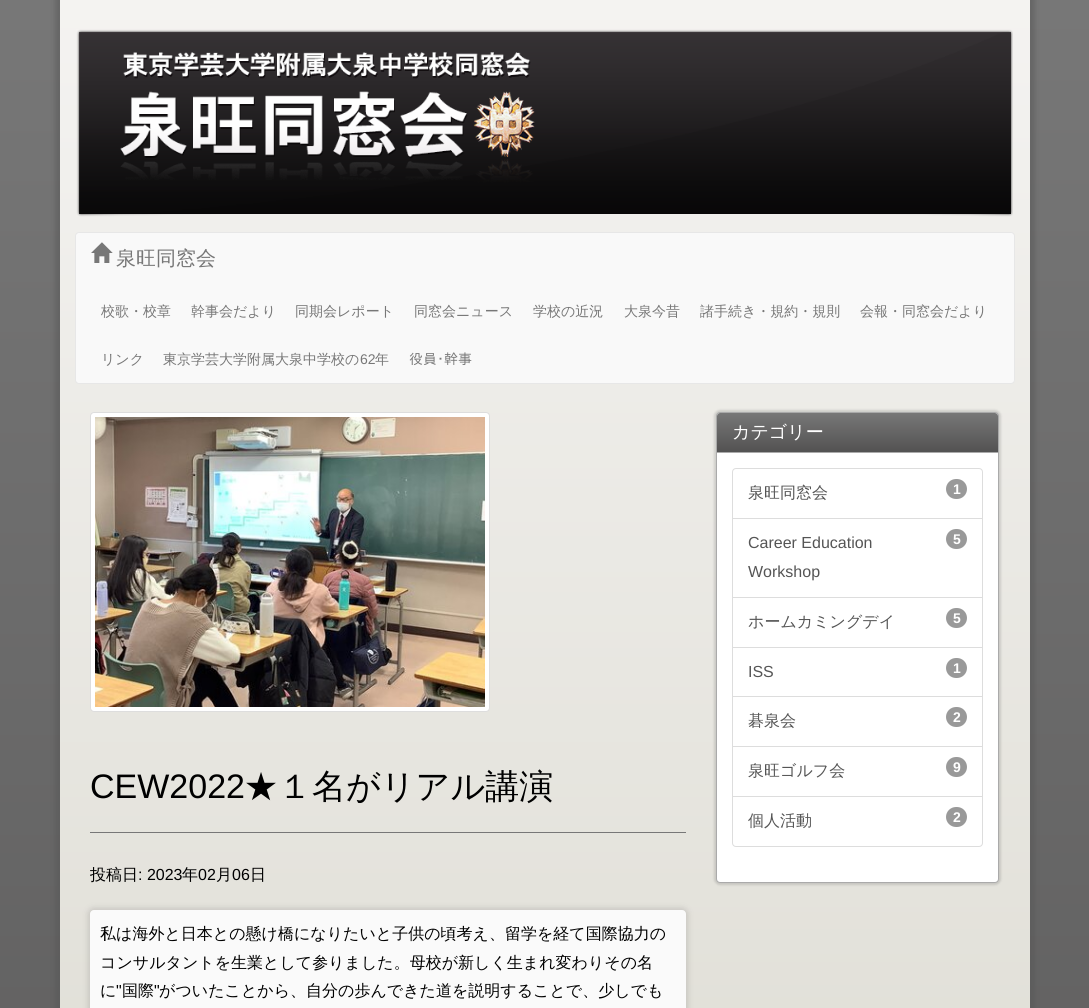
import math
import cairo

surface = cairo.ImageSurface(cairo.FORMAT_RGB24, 1089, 1008)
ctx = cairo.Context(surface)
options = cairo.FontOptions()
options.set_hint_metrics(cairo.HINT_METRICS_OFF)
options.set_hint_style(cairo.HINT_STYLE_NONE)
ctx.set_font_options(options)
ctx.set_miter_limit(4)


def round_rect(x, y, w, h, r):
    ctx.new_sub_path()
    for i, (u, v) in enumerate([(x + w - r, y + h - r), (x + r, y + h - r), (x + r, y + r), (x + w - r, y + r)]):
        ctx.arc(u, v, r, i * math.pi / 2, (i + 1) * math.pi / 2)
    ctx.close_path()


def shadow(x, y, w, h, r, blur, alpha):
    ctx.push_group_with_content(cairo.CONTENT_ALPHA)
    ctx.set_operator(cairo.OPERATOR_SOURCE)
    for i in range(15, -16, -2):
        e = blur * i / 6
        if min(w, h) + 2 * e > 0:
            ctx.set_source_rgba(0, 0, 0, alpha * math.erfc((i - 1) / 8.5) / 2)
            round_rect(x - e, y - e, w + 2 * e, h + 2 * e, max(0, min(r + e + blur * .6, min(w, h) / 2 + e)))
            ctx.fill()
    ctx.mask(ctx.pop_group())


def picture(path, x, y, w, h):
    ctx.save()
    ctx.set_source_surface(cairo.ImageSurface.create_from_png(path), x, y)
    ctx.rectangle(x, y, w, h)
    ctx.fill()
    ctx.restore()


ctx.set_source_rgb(1, 1, 1)
ctx.paint()
gradient = cairo.LinearGradient(544, 0, 545, 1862)
gradient.add_color_stop_rgba(0, 0.467, 0.467, 0.467, 1)
gradient.add_color_stop_rgba(1, 0.325, 0.322, 0.322, 1)
ctx.set_source(gradient)
ctx.rectangle(0, 0, 1089, 1008)
ctx.fill()
ctx.set_source_rgb(0.333, 0.333, 0.333)
shadow(55, -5, 980, 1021, 0, 2.5, 0.5)
gradient = cairo.LinearGradient(545, 0, 545, 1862)
gradient.add_color_stop_rgba(0, 0.957, 0.953, 0.945, 1)
gradient.add_color_stop_rgba(1, 0.827, 0.82, 0.773, 1)
ctx.set_source(gradient)
ctx.rectangle(60, 0, 970, 1008)
ctx.fill()
picture("img1.png", 76, 29, 937, 188)
ctx.set_source_rgb(0.973, 0.973, 0.973)
round_rect(75.5, 232.5, 939, 151, 3.5)
ctx.fill_preserve()
ctx.set_source_rgb(0.906, 0.906, 0.906)
ctx.set_line_width(1)
ctx.stroke()
picture("img2.png", 91, 242, 22, 21)
ctx.select_font_face("WenQuanYi Zen Hei Medium")
ctx.set_font_size(20)
ctx.set_source_rgb(0.467, 0.467, 0.467)
ctx.move_to(116, 265)
ctx.show_text("泉旺同窓会")
ctx.set_font_size(14)
ctx.move_to(101, 316)
ctx.show_text("校歌・校章")
ctx.move_to(191, 316)
ctx.show_text("幹事会だより")
ctx.move_to(295, 316)
ctx.show_text("同期会レポート")
ctx.move_to(414, 316)
ctx.show_text("同窓会ニュース")
ctx.move_to(533, 316)
ctx.show_text("学校の近況")
ctx.move_to(624, 316)
ctx.show_text("大泉今昔")
ctx.move_to(700, 316)
ctx.show_text("諸手続き・規約・規則")
ctx.move_to(860, 316)
ctx.show_text("会報・同窓会だより")
ctx.move_to(101, 364)
ctx.show_text("リンク")
ctx.move_to(163, 364)
ctx.show_text("東京学芸大学附属大泉中学校の")
ctx.select_font_face("Liberation Sans")
ctx.move_to(360, 364)
ctx.show_text("62")
ctx.select_font_face("WenQuanYi Zen Hei Medium")
ctx.move_to(375, 364)
ctx.show_text("年")
ctx.select_font_face("IPAPGothic")
ctx.move_to(409, 364)
ctx.show_text("役員･幹事")
ctx.set_source_rgb(0.333, 0.333, 0.333)
shadow(714, 410, 287, 475, 6, 1, 0.2)
ctx.set_source_rgb(1, 1, 1)
round_rect(716.5, 412.5, 282, 470, 3.5)
ctx.fill_preserve()
ctx.set_source_rgb(0.667, 0.667, 0.667)
ctx.stroke()
gradient = cairo.LinearGradient(858, 413, 858, 452)
gradient.add_color_stop_rgba(0, 0.467, 0.467, 0.467, 1)
gradient.add_color_stop_rgba(1, 0.325, 0.322, 0.322, 1)
ctx.set_source(gradient)
ctx.new_path()
ctx.move_to(720, 413)
ctx.line_to(995, 413)
ctx.curve_to(996.5, 413, 998, 414.5, 998, 416)
ctx.line_to(998, 452)
ctx.line_to(717, 452)
ctx.line_to(717, 416)
ctx.curve_to(717, 414.5, 718.5, 413, 720, 413)
ctx.close_path()
ctx.fill()
ctx.set_source_rgb(0.667, 0.667, 0.667)
ctx.rectangle(717, 452, 281, 1)
ctx.fill()
ctx.select_font_face("WenQuanYi Zen Hei Medium")
ctx.set_font_size(18)
ctx.set_source_rgb(1, 1, 1)
ctx.move_to(732, 438)
ctx.show_text("カテゴリー")
ctx.new_path()
ctx.move_to(736, 468.5)
ctx.line_to(979, 468.5)
ctx.curve_to(981, 468.5, 982.5, 470, 982.5, 472)
ctx.line_to(982.5, 518.5)
ctx.line_to(732.5, 518.5)
ctx.line_to(732.5, 472)
ctx.curve_to(732.5, 470, 734, 468.5, 736, 468.5)
ctx.close_path()
ctx.set_source_rgb(0.867, 0.867, 0.867)
ctx.stroke()
ctx.set_font_size(16)
ctx.set_source_rgb(0.333, 0.333, 0.333)
ctx.move_to(748, 498)
ctx.show_text("泉旺同窓会")
ctx.set_source_rgb(0.6, 0.6, 0.6)
round_rect(946, 479, 21, 20, 10)
ctx.fill()
ctx.select_font_face("Liberation Sans", cairo.FONT_SLANT_NORMAL, cairo.FONT_WEIGHT_BOLD)
ctx.set_font_size(14)
ctx.set_source_rgb(1, 1, 1)
ctx.move_to(953, 494)
ctx.show_text("1")
ctx.rectangle(732.5, 518.5, 250, 79)
ctx.set_source_rgb(0.867, 0.867, 0.867)
ctx.stroke()
ctx.select_font_face("Liberation Sans")
ctx.set_font_size(16)
ctx.set_source_rgb(0.333, 0.333, 0.333)
ctx.move_to(748, 548)
ctx.show_text("Career Education")
ctx.set_source_rgb(0.6, 0.6, 0.6)
round_rect(946, 529, 21, 20, 10)
ctx.fill()
ctx.select_font_face("Liberation Sans", cairo.FONT_SLANT_NORMAL, cairo.FONT_WEIGHT_BOLD)
ctx.set_font_size(14)
ctx.set_source_rgb(1, 1, 1)
ctx.move_to(953, 544)
ctx.show_text("5")
ctx.select_font_face("Liberation Sans")
ctx.set_font_size(16)
ctx.set_source_rgb(0.333, 0.333, 0.333)
ctx.move_to(748, 577)
ctx.show_text("Workshop")
ctx.rectangle(732.5, 597.5, 250, 50)
ctx.set_source_rgb(0.867, 0.867, 0.867)
ctx.stroke()
ctx.select_font_face("WenQuanYi Zen Hei Medium")
ctx.set_source_rgb(0.333, 0.333, 0.333)
ctx.move_to(748, 627)
ctx.show_text("ホームカミングデイ")
ctx.set_source_rgb(0.6, 0.6, 0.6)
round_rect(946, 608, 21, 20, 10)
ctx.fill()
ctx.select_font_face("Liberation Sans", cairo.FONT_SLANT_NORMAL, cairo.FONT_WEIGHT_BOLD)
ctx.set_font_size(14)
ctx.set_source_rgb(1, 1, 1)
ctx.move_to(953, 623)
ctx.show_text("5")
ctx.rectangle(732.5, 647.5, 250, 49)
ctx.set_source_rgb(0.867, 0.867, 0.867)
ctx.stroke()
ctx.select_font_face("Liberation Sans")
ctx.set_font_size(16)
ctx.set_source_rgb(0.333, 0.333, 0.333)
ctx.move_to(748, 677)
ctx.show_text("ISS")
ctx.set_source_rgb(0.6, 0.6, 0.6)
round_rect(946, 658, 21, 20, 10)
ctx.fill()
ctx.select_font_face("Liberation Sans", cairo.FONT_SLANT_NORMAL, cairo.FONT_WEIGHT_BOLD)
ctx.set_font_size(14)
ctx.set_source_rgb(1, 1, 1)
ctx.move_to(953, 673)
ctx.show_text("1")
ctx.rectangle(732.5, 696.5, 250, 50)
ctx.set_source_rgb(0.867, 0.867, 0.867)
ctx.stroke()
ctx.select_font_face("WenQuanYi Zen Hei Medium")
ctx.set_font_size(16)
ctx.set_source_rgb(0.333, 0.333, 0.333)
ctx.move_to(748, 726)
ctx.show_text("碁泉会")
ctx.set_source_rgb(0.6, 0.6, 0.6)
round_rect(946, 707, 21, 20, 10)
ctx.fill()
ctx.select_font_face("Liberation Sans", cairo.FONT_SLANT_NORMAL, cairo.FONT_WEIGHT_BOLD)
ctx.set_font_size(14)
ctx.set_source_rgb(1, 1, 1)
ctx.move_to(953, 722)
ctx.show_text("2")
ctx.rectangle(732.5, 746.5, 250, 50)
ctx.set_source_rgb(0.867, 0.867, 0.867)
ctx.stroke()
ctx.select_font_face("WenQuanYi Zen Hei Medium")
ctx.set_font_size(16)
ctx.set_source_rgb(0.333, 0.333, 0.333)
ctx.move_to(748, 776)
ctx.show_text("泉旺ゴルフ会")
ctx.set_source_rgb(0.6, 0.6, 0.6)
round_rect(946, 757, 21, 20, 10)
ctx.fill()
ctx.select_font_face("Liberation Sans", cairo.FONT_SLANT_NORMAL, cairo.FONT_WEIGHT_BOLD)
ctx.set_font_size(14)
ctx.set_source_rgb(1, 1, 1)
ctx.move_to(953, 772)
ctx.show_text("9")
ctx.new_path()
ctx.move_to(732.5, 796.5)
ctx.line_to(982.5, 796.5)
ctx.line_to(982.5, 843)
ctx.curve_to(982.5, 845, 981, 846.5, 979, 846.5)
ctx.line_to(736, 846.5)
ctx.curve_to(734, 846.5, 732.5, 845, 732.5, 843)
ctx.close_path()
ctx.fill_preserve()
ctx.set_source_rgb(0.867, 0.867, 0.867)
ctx.stroke()
ctx.select_font_face("WenQuanYi Zen Hei Medium")
ctx.set_font_size(16)
ctx.set_source_rgb(0.333, 0.333, 0.333)
ctx.move_to(748, 826)
ctx.show_text("個人活動")
ctx.set_source_rgb(0.6, 0.6, 0.6)
round_rect(946, 807, 21, 20, 10)
ctx.fill()
ctx.select_font_face("Liberation Sans", cairo.FONT_SLANT_NORMAL, cairo.FONT_WEIGHT_BOLD)
ctx.set_font_size(14)
ctx.set_source_rgb(1, 1, 1)
ctx.move_to(953, 822)
ctx.show_text("2")
round_rect(90.5, 412.5, 399, 299, 3.5)
ctx.fill_preserve()
ctx.set_source_rgb(0.867, 0.867, 0.867)
ctx.stroke()
picture("img3.png", 95, 417, 390, 290)
ctx.set_source_rgb(0.467, 0.467, 0.467)
ctx.rectangle(90, 832, 596, 1)
ctx.fill()
ctx.select_font_face("Liberation Sans")
ctx.set_font_size(34)
ctx.set_source_rgb(0, 0, 0)
ctx.move_to(90, 798)
ctx.show_text("CEW2022")
ctx.select_font_face("WenQuanYi Zen Hei Medium")
ctx.move_to(244, 798)
ctx.show_text("★１名がリアル講演")
ctx.set_font_size(16)
ctx.move_to(90, 880)
ctx.show_text("投稿日")
ctx.select_font_face("Liberation Sans")
ctx.move_to(138, 880)
ctx.show_text(": 2023")
ctx.select_font_face("WenQuanYi Zen Hei Medium")
ctx.move_to(182, 880)
ctx.show_text("年")
ctx.select_font_face("Liberation Sans")
ctx.move_to(198, 880)
ctx.show_text("02")
ctx.select_font_face("WenQuanYi Zen Hei Medium")
ctx.move_to(216, 880)
ctx.show_text("月")
ctx.select_font_face("Liberation Sans")
ctx.move_to(232, 880)
ctx.show_text("06")
ctx.select_font_face("WenQuanYi Zen Hei Medium")
ctx.move_to(250, 880)
ctx.show_text("日")
ctx.set_source_rgb(0.333, 0.333, 0.333)
shadow(88, 908, 600, 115, 6, 3, 0.2)
ctx.set_source_rgb(0.98, 0.98, 0.98)
round_rect(90, 910, 596, 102, 4)
ctx.fill()
ctx.set_source_rgb(0, 0, 0)
ctx.move_to(100, 939)
ctx.show_text("私は海外と日本との懸け橋になりたいと子供の頃考え、留学を経て国際協力の")
ctx.move_to(100, 968)
ctx.show_text("コンサルタントを生業として参りました。母校が新しく生まれ変わりその名")
ctx.move_to(100, 996)
ctx.show_text("に")
ctx.select_font_face("Liberation Sans")
ctx.move_to(116, 996)
ctx.show_text("\"")
ctx.select_font_face("WenQuanYi Zen Hei Medium")
ctx.move_to(122, 996)
ctx.show_text("国際")
ctx.select_font_face("Liberation Sans")
ctx.move_to(154, 996)
ctx.show_text("\"")
ctx.select_font_face("WenQuanYi Zen Hei Medium")
ctx.move_to(159, 996)
ctx.show_text("がついたことから、自分の歩んできた道を説明することで、少しでも")
surface.write_to_png("page.png")
